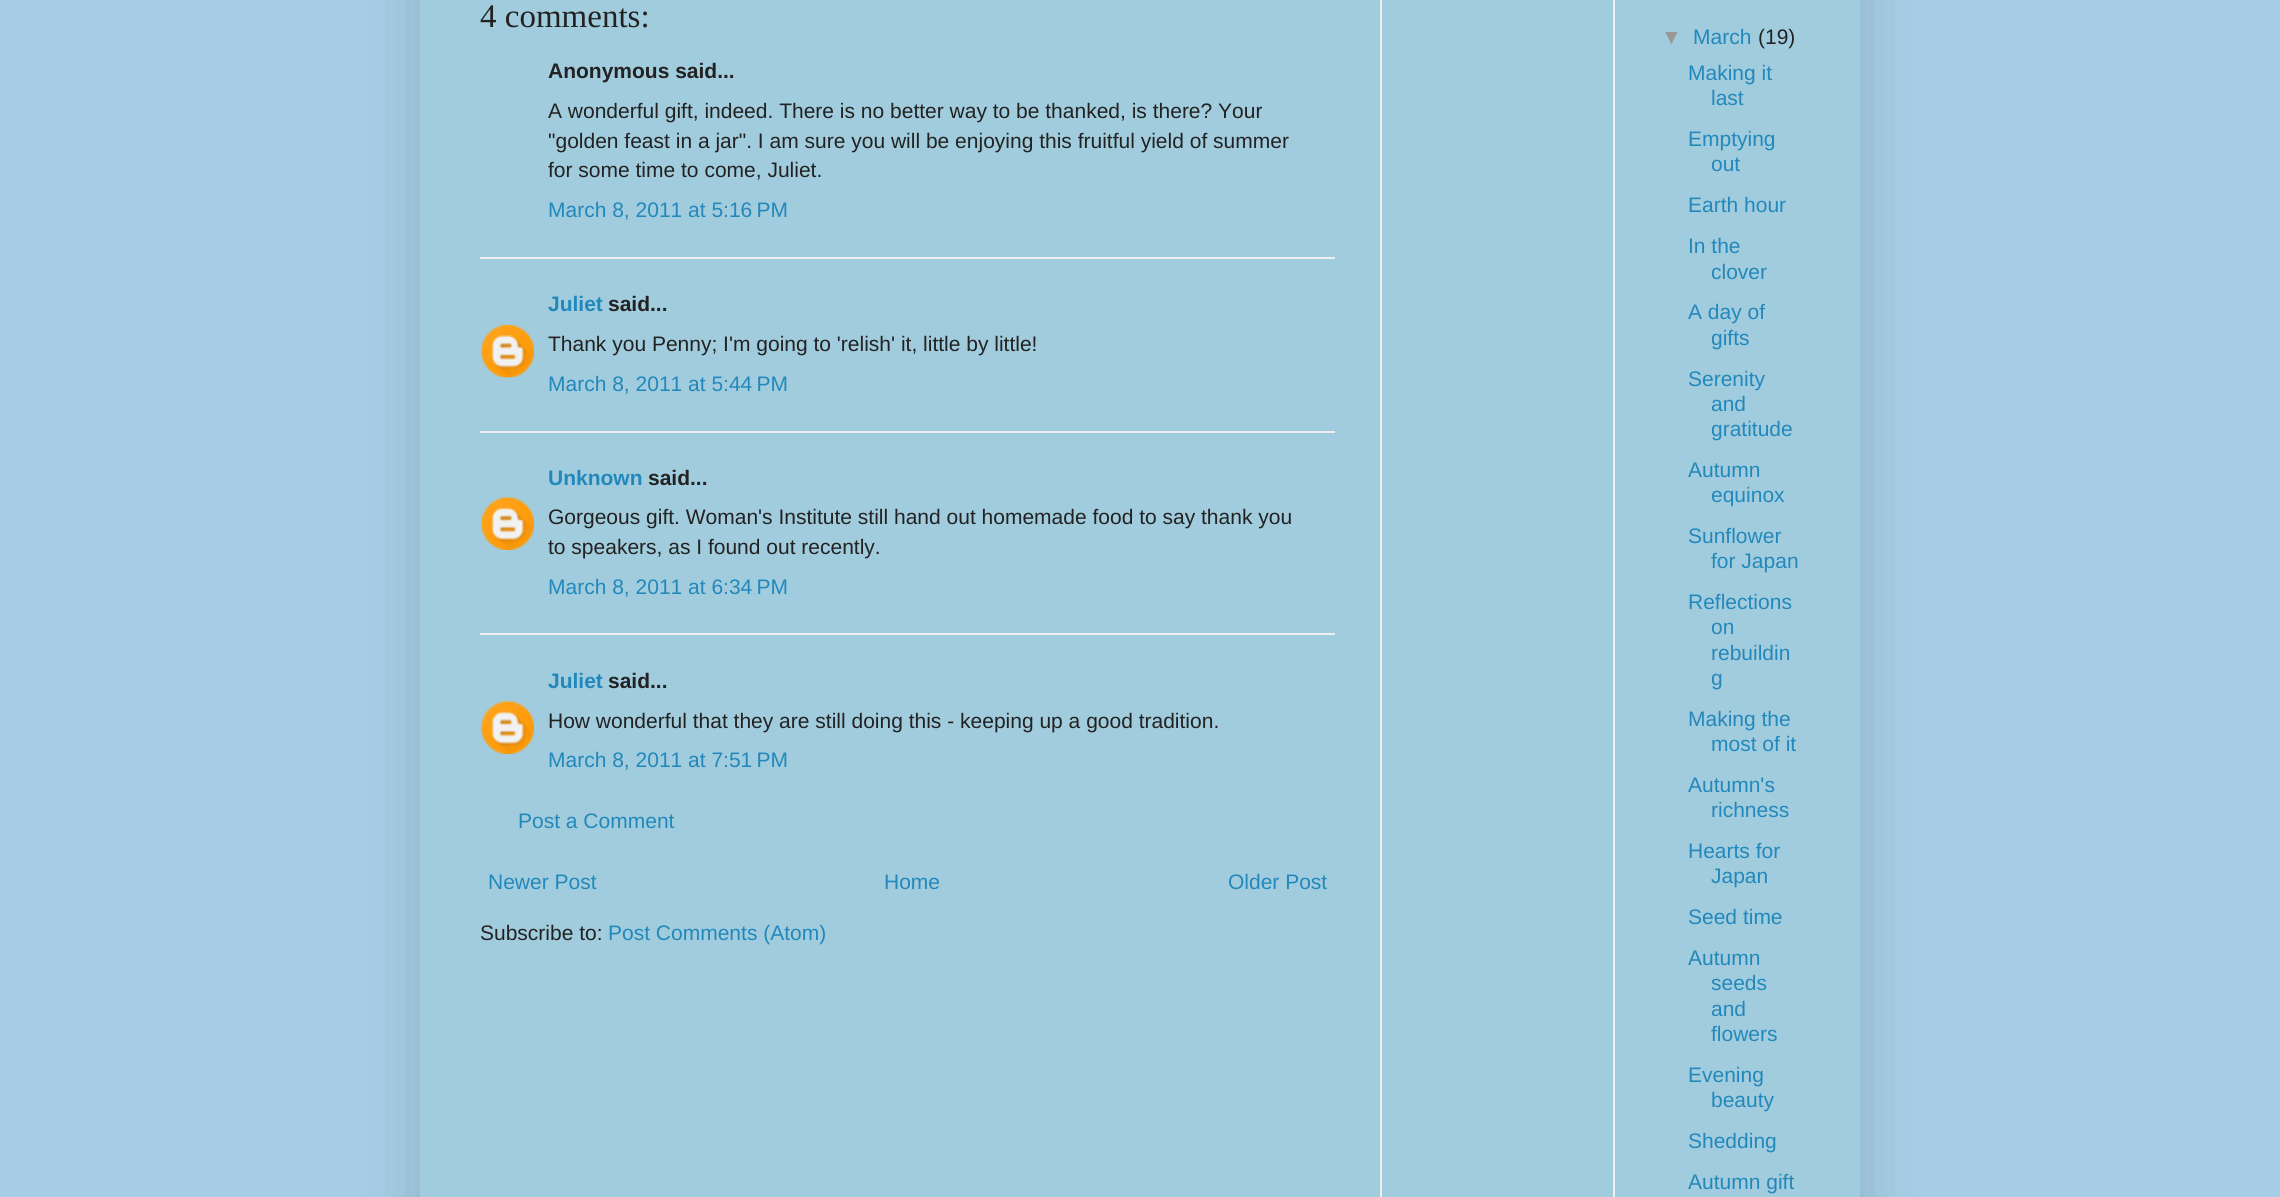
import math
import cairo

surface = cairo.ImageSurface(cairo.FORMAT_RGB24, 2280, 1197)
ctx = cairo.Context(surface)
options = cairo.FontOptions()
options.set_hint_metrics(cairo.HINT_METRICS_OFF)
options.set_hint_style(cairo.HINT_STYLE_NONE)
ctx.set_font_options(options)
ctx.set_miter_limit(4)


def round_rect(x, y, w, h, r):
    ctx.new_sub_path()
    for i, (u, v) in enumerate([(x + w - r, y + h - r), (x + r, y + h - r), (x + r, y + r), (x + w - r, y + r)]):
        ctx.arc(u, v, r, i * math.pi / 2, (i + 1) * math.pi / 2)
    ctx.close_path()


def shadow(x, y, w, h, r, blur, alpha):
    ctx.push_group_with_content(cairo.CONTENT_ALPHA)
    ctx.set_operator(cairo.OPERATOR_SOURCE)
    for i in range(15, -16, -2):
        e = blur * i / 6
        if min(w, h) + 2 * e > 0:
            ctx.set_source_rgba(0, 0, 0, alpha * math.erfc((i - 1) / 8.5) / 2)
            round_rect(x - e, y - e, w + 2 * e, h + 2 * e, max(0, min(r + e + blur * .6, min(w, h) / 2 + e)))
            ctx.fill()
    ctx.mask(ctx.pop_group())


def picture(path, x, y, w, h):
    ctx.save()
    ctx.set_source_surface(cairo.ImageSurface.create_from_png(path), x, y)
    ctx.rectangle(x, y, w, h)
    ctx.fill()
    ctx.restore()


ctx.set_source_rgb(0.651, 0.804, 0.898)
ctx.paint()
ctx.set_source_rgb(0, 0, 0)
shadow(420, -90, 1440, 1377, 0, 30, 0.15)
ctx.set_source_rgb(0.631, 0.8, 0.867)
ctx.rectangle(420, 0, 1440, 1197)
ctx.fill()
ctx.set_source_rgb(0.933, 0.933, 0.933)
ctx.rectangle(1380, 0, 2, 1197)
ctx.fill()
ctx.select_font_face("Liberation Serif")
ctx.set_font_size(33)
ctx.set_source_rgb(0.133, 0.133, 0.133)
ctx.move_to(480, 27)
ctx.show_text("4 comments:")
ctx.select_font_face("Liberation Sans", cairo.FONT_SLANT_NORMAL, cairo.FONT_WEIGHT_BOLD)
ctx.set_font_size(21)
ctx.move_to(548, 78)
ctx.show_text("Anonymous said...")
ctx.select_font_face("Liberation Sans")
ctx.move_to(548, 118)
ctx.show_text("A wonderful gift, indeed. There is no better way to be thanked, is there? Your")
ctx.move_to(548, 148)
ctx.show_text("\"golden feast in a jar\". I am sure you will be enjoying this fruitful yield of summer")
ctx.move_to(548, 177)
ctx.show_text("for some time to come, Juliet.")
ctx.set_source_rgb(0.133, 0.533, 0.733)
ctx.move_to(548, 217)
ctx.show_text("March 8, 2011 at 5:16 PM")
ctx.set_source_rgb(0.933, 0.933, 0.933)
ctx.rectangle(480, 257, 855, 2)
ctx.fill()
ctx.select_font_face("Liberation Sans", cairo.FONT_SLANT_NORMAL, cairo.FONT_WEIGHT_BOLD)
ctx.set_source_rgb(0.133, 0.533, 0.733)
ctx.move_to(548, 311)
ctx.show_text("Juliet")
ctx.set_source_rgb(0.133, 0.133, 0.133)
ctx.move_to(608, 311)
ctx.show_text("said...")
picture("img1.png", 481, 325, 53, 53)
ctx.select_font_face("Liberation Sans")
ctx.move_to(548, 351)
ctx.show_text("Thank you Penny; I'm going to 'relish' it, little by little!")
ctx.set_source_rgb(0.133, 0.533, 0.733)
ctx.move_to(548, 391)
ctx.show_text("March 8, 2011 at 5:44 PM")
ctx.set_source_rgb(0.933, 0.933, 0.933)
ctx.rectangle(480, 431, 855, 2)
ctx.fill()
ctx.select_font_face("Liberation Sans", cairo.FONT_SLANT_NORMAL, cairo.FONT_WEIGHT_BOLD)
ctx.set_source_rgb(0.133, 0.533, 0.733)
ctx.move_to(548, 485)
ctx.show_text("Unknown")
ctx.set_source_rgb(0.133, 0.133, 0.133)
ctx.move_to(648, 485)
ctx.show_text("said...")
picture("img2.png", 481, 497, 53, 53)
ctx.select_font_face("Liberation Sans")
ctx.move_to(548, 524)
ctx.show_text("Gorgeous gift. Woman's Institute still hand out homemade food to say thank you")
ctx.move_to(548, 554)
ctx.show_text("to speakers, as I found out recently.")
ctx.set_source_rgb(0.133, 0.533, 0.733)
ctx.move_to(548, 594)
ctx.show_text("March 8, 2011 at 6:34 PM")
ctx.set_source_rgb(0.933, 0.933, 0.933)
ctx.rectangle(480, 633, 855, 2)
ctx.fill()
ctx.select_font_face("Liberation Sans", cairo.FONT_SLANT_NORMAL, cairo.FONT_WEIGHT_BOLD)
ctx.set_source_rgb(0.133, 0.533, 0.733)
ctx.move_to(548, 688)
ctx.show_text("Juliet")
ctx.set_source_rgb(0.133, 0.133, 0.133)
ctx.move_to(608, 688)
ctx.show_text("said...")
picture("img2.png", 481, 701, 53, 53)
ctx.select_font_face("Liberation Sans")
ctx.move_to(548, 728)
ctx.show_text("How wonderful that they are still doing this - keeping up a good tradition.")
ctx.set_source_rgb(0.133, 0.533, 0.733)
ctx.move_to(548, 767)
ctx.show_text("March 8, 2011 at 7:51 PM")
ctx.move_to(518, 828)
ctx.show_text("Post a Comment")
ctx.move_to(488, 889)
ctx.show_text("Newer Post")
ctx.move_to(884, 889)
ctx.show_text("Home")
ctx.move_to(1228, 889)
ctx.show_text("Older Post")
ctx.set_source_rgb(0.133, 0.133, 0.133)
ctx.move_to(480, 940)
ctx.show_text("Subscribe to:")
ctx.set_source_rgb(0.133, 0.533, 0.733)
ctx.move_to(608, 940)
ctx.show_text("Post Comments (Atom)")
ctx.set_source_rgb(0.933, 0.933, 0.933)
ctx.rectangle(1613, 0, 2, 1197)
ctx.fill()
ctx.set_source_rgb(0.6, 0.6, 0.6)
ctx.move_to(1661, 44)
ctx.show_text("▼")
ctx.set_source_rgb(0.133, 0.533, 0.733)
ctx.move_to(1693, 44)
ctx.show_text("March")
ctx.set_source_rgb(0.133, 0.133, 0.133)
ctx.move_to(1758, 44)
ctx.show_text("(19)")
ctx.set_source_rgb(0.133, 0.533, 0.733)
ctx.move_to(1688, 80)
ctx.show_text("Making it")
ctx.move_to(1711, 105)
ctx.show_text("last")
ctx.move_to(1688, 146)
ctx.show_text("Emptying")
ctx.move_to(1711, 171)
ctx.show_text("out")
ctx.move_to(1688, 212)
ctx.show_text("Earth hour")
ctx.move_to(1688, 253)
ctx.show_text("In the")
ctx.move_to(1711, 279)
ctx.show_text("clover")
ctx.move_to(1688, 319)
ctx.show_text("A day of")
ctx.move_to(1711, 345)
ctx.show_text("gifts")
ctx.move_to(1688, 386)
ctx.show_text("Serenity")
ctx.move_to(1711, 411)
ctx.show_text("and")
ctx.move_to(1711, 436)
ctx.show_text("gratitude")
ctx.move_to(1688, 477)
ctx.show_text("Autumn")
ctx.move_to(1711, 502)
ctx.show_text("equinox")
ctx.move_to(1688, 543)
ctx.show_text("Sunflower")
ctx.move_to(1711, 568)
ctx.show_text("for Japan")
ctx.move_to(1688, 609)
ctx.show_text("Reflections")
ctx.move_to(1711, 634)
ctx.show_text("on")
ctx.move_to(1711, 660)
ctx.show_text("rebuildin")
ctx.move_to(1711, 685)
ctx.show_text("g")
ctx.move_to(1688, 726)
ctx.show_text("Making the")
ctx.move_to(1711, 751)
ctx.show_text("most of it")
ctx.move_to(1688, 792)
ctx.show_text("Autumn's")
ctx.move_to(1711, 817)
ctx.show_text("richness")
ctx.move_to(1688, 858)
ctx.show_text("Hearts for")
ctx.move_to(1711, 883)
ctx.show_text("Japan")
ctx.move_to(1688, 924)
ctx.show_text("Seed time")
ctx.move_to(1688, 965)
ctx.show_text("Autumn")
ctx.move_to(1711, 990)
ctx.show_text("seeds")
ctx.move_to(1711, 1016)
ctx.show_text("and")
ctx.move_to(1711, 1041)
ctx.show_text("flowers")
ctx.move_to(1688, 1082)
ctx.show_text("Evening")
ctx.move_to(1711, 1107)
ctx.show_text("beauty")
ctx.move_to(1688, 1148)
ctx.show_text("Shedding")
ctx.move_to(1688, 1189)
ctx.show_text("Autumn gift")
surface.write_to_png("page.png")
